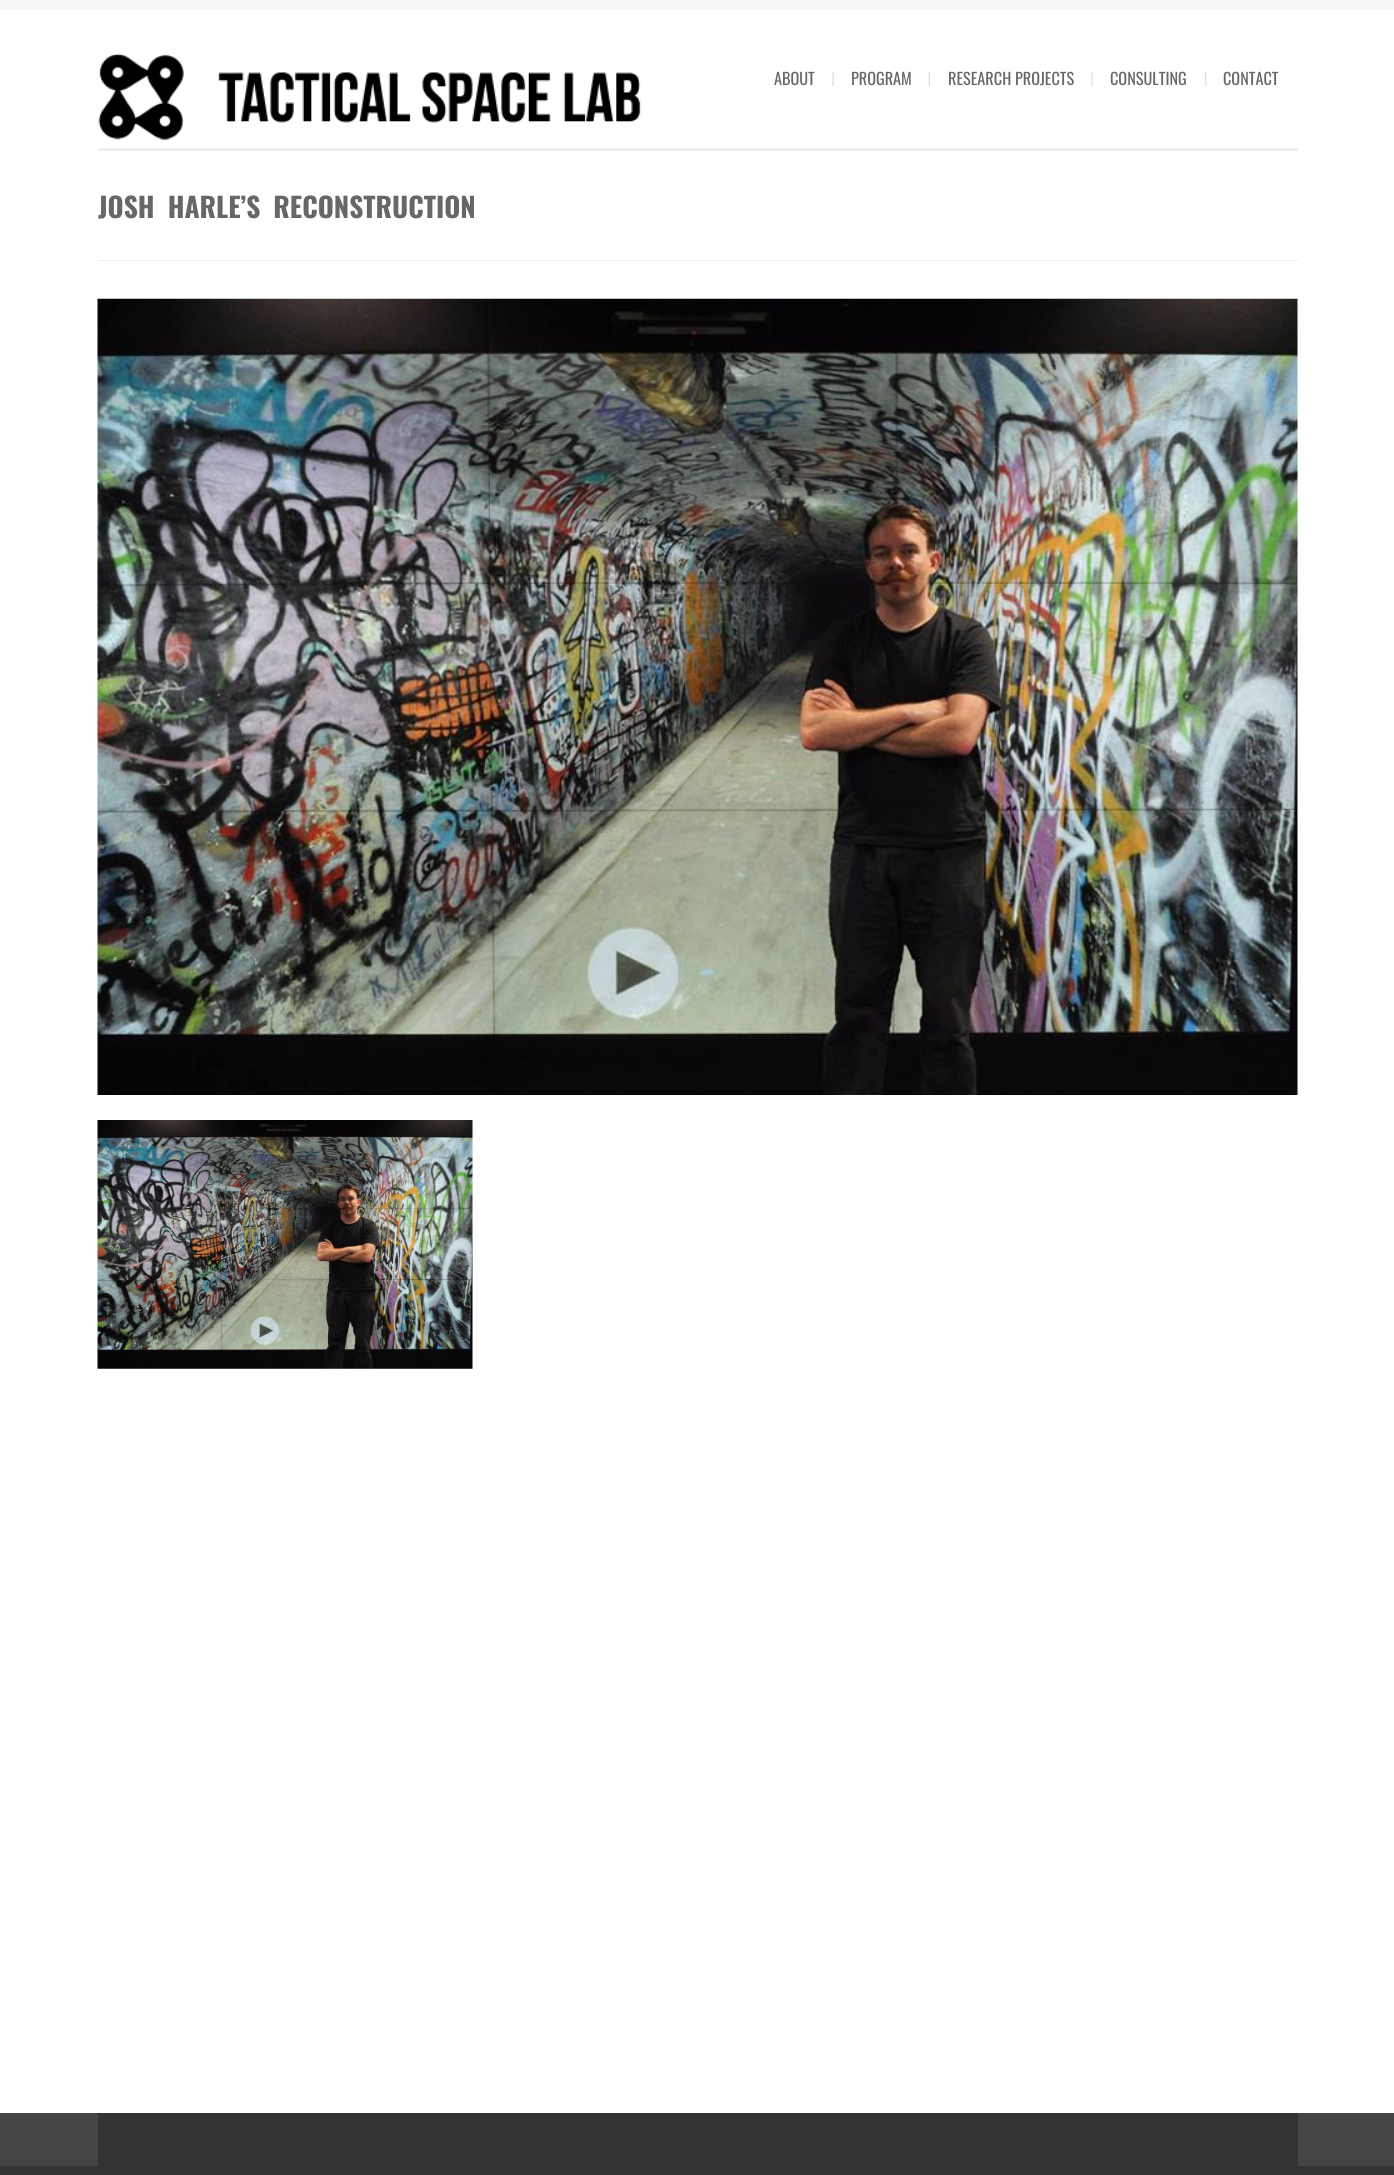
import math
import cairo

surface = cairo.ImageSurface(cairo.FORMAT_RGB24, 1394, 2175)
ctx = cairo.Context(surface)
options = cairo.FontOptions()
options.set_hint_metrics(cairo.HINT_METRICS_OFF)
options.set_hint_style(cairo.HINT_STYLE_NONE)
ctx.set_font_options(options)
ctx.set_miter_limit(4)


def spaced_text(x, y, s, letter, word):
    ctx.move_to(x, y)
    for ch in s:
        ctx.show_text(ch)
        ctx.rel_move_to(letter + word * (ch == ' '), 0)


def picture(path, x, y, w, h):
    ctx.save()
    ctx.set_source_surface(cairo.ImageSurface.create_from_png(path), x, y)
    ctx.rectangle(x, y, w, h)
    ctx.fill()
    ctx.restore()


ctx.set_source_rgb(1, 1, 1)
ctx.paint()
ctx.set_source_rgb(0.961, 0.961, 0.961)
ctx.rectangle(0, 0, 1394, 9)
ctx.fill()
picture("img1.png", 98, 53, 543, 87)
picture("img2.png", 832, 72, 2, 15)
ctx.select_font_face("Oswald")
ctx.set_font_size(16.25)
ctx.set_source_rgb(0.404, 0.404, 0.404)
ctx.move_to(774, 85)
ctx.show_text("ABOUT")
picture("img3.png", 928, 72, 2, 15)
ctx.move_to(851, 85)
ctx.show_text("PROGRAM")
picture("img4.png", 1091, 72, 2, 15)
ctx.move_to(948, 85)
ctx.show_text("RESEARCH PROJECTS")
picture("img5.png", 1205, 72, 2, 15)
ctx.move_to(1110, 85)
ctx.show_text("CONSULTING")
ctx.move_to(1223, 85)
ctx.show_text("CONTACT")
ctx.set_source_rgb(0.933, 0.933, 0.933)
ctx.rectangle(98, 148, 1200, 3)
ctx.fill()
ctx.rectangle(98, 260, 1200, 1)
ctx.fill()
ctx.save()
ctx.rectangle(98, 150, 1200, 110)
ctx.clip()
ctx.select_font_face("Oswald", cairo.FONT_SLANT_NORMAL, cairo.FONT_WEIGHT_BOLD)
ctx.set_font_size(27.5)
ctx.set_source_rgb(0.404, 0.404, 0.404)
spaced_text(98, 218, "JOSH HARLE’S RECONSTRUCTION", 0, 6)
ctx.restore()
picture("img6.png", 97, 298, 1201, 797)
picture("img7.png", 97, 1120, 376, 249)
ctx.set_source_rgb(0.267, 0.267, 0.267)
ctx.rectangle(0, 2113, 1394, 53)
ctx.fill()
ctx.set_source_rgb(0.2, 0.2, 0.2)
ctx.rectangle(0, 2166, 1394, 9)
ctx.fill()
ctx.rectangle(98, 2113, 1200, 53)
ctx.fill()
surface.write_to_png("page.png")
